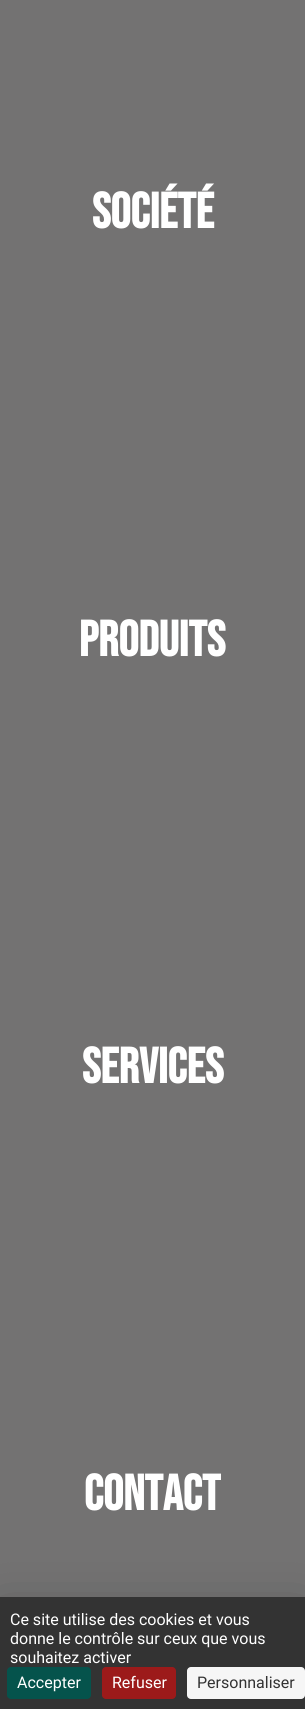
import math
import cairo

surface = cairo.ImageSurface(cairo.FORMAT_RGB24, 305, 1709)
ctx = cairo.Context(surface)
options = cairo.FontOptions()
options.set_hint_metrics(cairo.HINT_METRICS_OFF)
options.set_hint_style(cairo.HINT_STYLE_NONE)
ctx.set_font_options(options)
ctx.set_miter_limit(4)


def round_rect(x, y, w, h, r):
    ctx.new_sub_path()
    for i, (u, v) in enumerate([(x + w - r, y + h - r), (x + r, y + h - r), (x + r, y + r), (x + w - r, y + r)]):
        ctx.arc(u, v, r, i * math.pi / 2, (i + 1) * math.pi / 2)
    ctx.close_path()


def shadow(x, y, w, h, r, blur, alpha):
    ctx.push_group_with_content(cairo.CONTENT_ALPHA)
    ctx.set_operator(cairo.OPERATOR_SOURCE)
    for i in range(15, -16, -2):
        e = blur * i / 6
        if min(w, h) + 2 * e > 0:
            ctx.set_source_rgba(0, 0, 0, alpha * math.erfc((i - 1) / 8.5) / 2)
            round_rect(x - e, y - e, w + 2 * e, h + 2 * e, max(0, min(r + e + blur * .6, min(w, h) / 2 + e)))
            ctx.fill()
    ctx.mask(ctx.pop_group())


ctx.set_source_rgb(0.451, 0.447, 0.447)
ctx.paint()
ctx.select_font_face("Bebas Neue", cairo.FONT_SLANT_NORMAL, cairo.FONT_WEIGHT_BOLD)
ctx.set_font_size(50)
ctx.set_source_rgb(1, 1, 1)
ctx.move_to(92, 228)
ctx.show_text("SOCIÉTÉ")
ctx.move_to(79, 656)
ctx.show_text("PRODUITS")
ctx.move_to(82, 1083)
ctx.show_text("SERVICES")
ctx.move_to(84, 1510)
ctx.show_text("CONTACT")
ctx.set_source_rgb(0, 0, 0)
shadow(0, 1617, 305, 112, 0, 30, 0.25)
ctx.set_source_rgb(0.2, 0.2, 0.2)
ctx.rectangle(0, 1597, 305, 112)
ctx.fill()
ctx.select_font_face("Roboto")
ctx.set_font_size(16)
ctx.set_source_rgb(1, 1, 1)
ctx.move_to(10, 1625)
ctx.show_text("Ce site utilise des cookies et vous")
ctx.move_to(10, 1644)
ctx.show_text("donne le contrôle sur ceux que vous")
ctx.move_to(10, 1663)
ctx.show_text("souhaitez activer")
ctx.set_source_rgb(0.02, 0.325, 0.298)
round_rect(7, 1667, 84, 32, 4)
ctx.fill()
ctx.set_source_rgb(1, 1, 1)
ctx.move_to(17, 1688)
ctx.show_text("Accepter")
ctx.set_source_rgb(0.612, 0.102, 0.102)
round_rect(102, 1667, 74, 32, 4)
ctx.fill()
ctx.set_source_rgb(1, 1, 1)
ctx.move_to(112, 1688)
ctx.show_text("Refuser")
ctx.set_source_rgb(0.961, 0.961, 0.961)
round_rect(187, 1667, 118, 32, 4)
ctx.fill()
ctx.set_source_rgb(0.2, 0.2, 0.2)
ctx.move_to(197, 1688)
ctx.show_text("Personnaliser")
surface.write_to_png("page.png")
